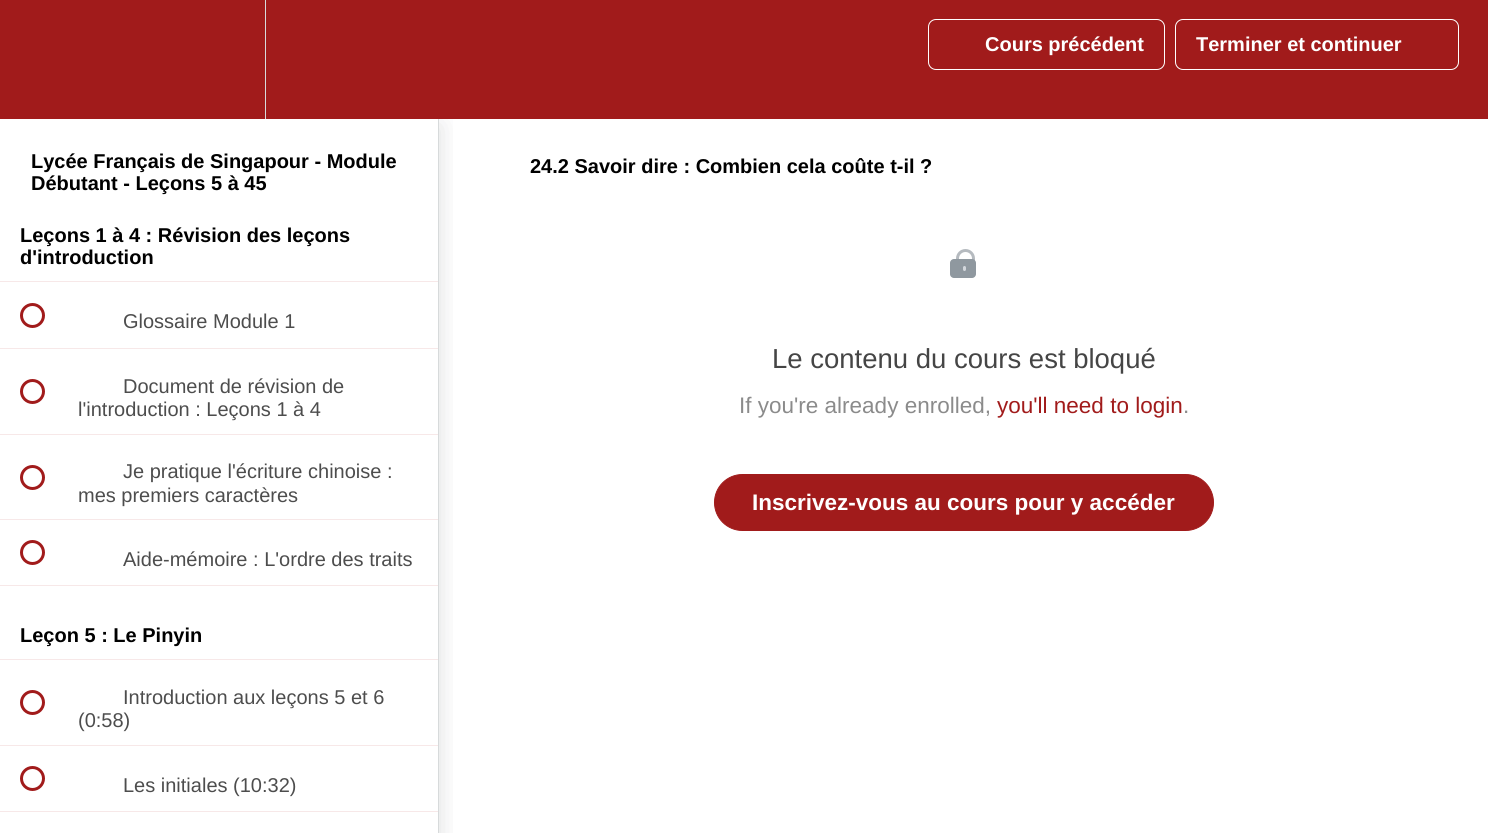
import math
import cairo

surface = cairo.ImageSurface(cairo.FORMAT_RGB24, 1488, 833)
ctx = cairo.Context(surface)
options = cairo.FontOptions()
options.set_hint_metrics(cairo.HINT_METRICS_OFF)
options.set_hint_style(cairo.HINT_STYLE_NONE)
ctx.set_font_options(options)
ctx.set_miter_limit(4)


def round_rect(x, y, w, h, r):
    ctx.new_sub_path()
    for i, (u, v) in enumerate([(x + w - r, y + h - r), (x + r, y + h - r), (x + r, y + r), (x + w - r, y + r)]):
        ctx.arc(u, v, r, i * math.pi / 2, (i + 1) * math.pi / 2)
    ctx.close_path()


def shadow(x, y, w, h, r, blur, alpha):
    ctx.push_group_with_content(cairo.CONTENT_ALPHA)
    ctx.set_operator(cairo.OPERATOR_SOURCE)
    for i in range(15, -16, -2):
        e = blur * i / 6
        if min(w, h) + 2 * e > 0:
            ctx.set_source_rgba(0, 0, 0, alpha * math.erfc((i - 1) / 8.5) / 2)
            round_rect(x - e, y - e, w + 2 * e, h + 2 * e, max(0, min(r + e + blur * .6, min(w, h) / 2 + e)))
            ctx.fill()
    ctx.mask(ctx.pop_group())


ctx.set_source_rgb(1, 1, 1)
ctx.paint()
ctx.save()
ctx.rectangle(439, 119, 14, 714)
ctx.clip()
ctx.set_source_rgb(0.125, 0.153, 0.176)
shadow(0, 126, 439, 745, 0, 12.5, 0.15)
ctx.restore()
ctx.set_source_rgb(0.631, 0.106, 0.106)
ctx.rectangle(0, 0, 1488, 119)
ctx.fill()
ctx.set_source_rgb(0.843, 0.855, 0.859)
ctx.rectangle(265, 0, 1, 119)
ctx.fill()
round_rect(928.5, 19.5, 236, 50, 7.5)
ctx.set_source_rgb(1, 1, 1)
ctx.set_line_width(1)
ctx.stroke()
ctx.select_font_face("Liberation Sans", cairo.FONT_SLANT_NORMAL, cairo.FONT_WEIGHT_BOLD)
ctx.set_font_size(20)
ctx.move_to(985, 51)
ctx.show_text("Cours précédent")
round_rect(1175.5, 19.5, 283, 50, 7.5)
ctx.stroke()
ctx.move_to(1196, 51)
ctx.show_text("Terminer et continuer")
ctx.set_source_rgb(0.843, 0.855, 0.859)
ctx.rectangle(438, 119, 1, 714)
ctx.fill()
ctx.set_source_rgb(0, 0, 0)
ctx.move_to(31, 168)
ctx.show_text("Lycée Français de Singapour - Module")
ctx.move_to(31, 190)
ctx.show_text("Débutant - Leçons 5 à 45")
ctx.set_source_rgb(0.965, 0.91, 0.91)
ctx.rectangle(0, 281, 438, 1)
ctx.fill()
ctx.set_source_rgb(0, 0, 0)
ctx.move_to(20, 242)
ctx.show_text("Leçons 1 à 4 : Révision des leçons")
ctx.move_to(20, 264)
ctx.show_text("d'introduction")
ctx.set_source_rgb(0.965, 0.91, 0.91)
ctx.rectangle(0, 348, 438, 1)
ctx.fill()
ctx.arc(32.5, 315.5, 11, 0, 2 * math.pi)
ctx.set_source_rgb(0.631, 0.106, 0.106)
ctx.set_line_width(3)
ctx.stroke()
ctx.select_font_face("Liberation Sans")
ctx.set_source_rgb(0.302, 0.302, 0.302)
ctx.move_to(123, 328)
ctx.show_text("Glossaire Module 1")
ctx.set_source_rgb(0.965, 0.91, 0.91)
ctx.rectangle(0, 434, 438, 1)
ctx.fill()
ctx.arc(32.5, 391.5, 11, 0, 2 * math.pi)
ctx.set_source_rgb(0.631, 0.106, 0.106)
ctx.stroke()
ctx.set_source_rgb(0.302, 0.302, 0.302)
ctx.move_to(123, 393)
ctx.show_text("Document de révision de")
ctx.move_to(78, 416)
ctx.show_text("l'introduction : Leçons 1 à 4")
ctx.set_source_rgb(0.965, 0.91, 0.91)
ctx.rectangle(0, 519, 438, 1)
ctx.fill()
ctx.arc(32.5, 477.5, 11, 0, 2 * math.pi)
ctx.set_source_rgb(0.631, 0.106, 0.106)
ctx.stroke()
ctx.set_source_rgb(0.302, 0.302, 0.302)
ctx.move_to(123, 478)
ctx.show_text("Je pratique l'écriture chinoise :")
ctx.move_to(78, 502)
ctx.show_text("mes premiers caractères")
ctx.set_source_rgb(0.965, 0.91, 0.91)
ctx.rectangle(0, 585, 438, 1)
ctx.fill()
ctx.arc(32.5, 552.5, 11, 0, 2 * math.pi)
ctx.set_source_rgb(0.631, 0.106, 0.106)
ctx.stroke()
ctx.set_source_rgb(0.302, 0.302, 0.302)
ctx.move_to(123, 566)
ctx.show_text("Aide-mémoire : L'ordre des traits")
ctx.set_source_rgb(0.965, 0.91, 0.91)
ctx.rectangle(0, 659, 438, 1)
ctx.fill()
ctx.select_font_face("Liberation Sans", cairo.FONT_SLANT_NORMAL, cairo.FONT_WEIGHT_BOLD)
ctx.set_source_rgb(0, 0, 0)
ctx.move_to(20, 642)
ctx.show_text("Leçon 5 : Le Pinyin")
ctx.set_source_rgb(0.965, 0.91, 0.91)
ctx.rectangle(0, 745, 438, 1)
ctx.fill()
ctx.arc(32.5, 702.5, 11, 0, 2 * math.pi)
ctx.set_source_rgb(0.631, 0.106, 0.106)
ctx.stroke()
ctx.select_font_face("Liberation Sans")
ctx.set_source_rgb(0.302, 0.302, 0.302)
ctx.move_to(123, 704)
ctx.show_text("Introduction aux leçons 5 et 6")
ctx.move_to(78, 727)
ctx.show_text("(0:58)")
ctx.set_source_rgb(0.965, 0.91, 0.91)
ctx.rectangle(0, 811, 438, 1)
ctx.fill()
ctx.arc(32.5, 778.5, 11, 0, 2 * math.pi)
ctx.set_source_rgb(0.631, 0.106, 0.106)
ctx.stroke()
ctx.set_source_rgb(0.302, 0.302, 0.302)
ctx.move_to(123, 792)
ctx.show_text("Les initiales (10:32)")
ctx.select_font_face("Liberation Sans", cairo.FONT_SLANT_NORMAL, cairo.FONT_WEIGHT_BOLD)
ctx.set_source_rgb(0, 0, 0)
ctx.move_to(530, 173)
ctx.show_text("24.2 Savoir dire : Combien cela coûte t-il ?")
round_rect(957.5, 250.5, 16, 24, 8)
ctx.set_source_rgb(0.71, 0.729, 0.749)
ctx.stroke()
ctx.set_source_rgb(0.561, 0.596, 0.624)
round_rect(950, 259, 26, 19, 4)
ctx.fill()
ctx.set_source_rgb(0.827, 0.843, 0.863)
round_rect(963, 266, 3, 5, 1.5)
ctx.fill()
ctx.select_font_face("Liberation Sans")
ctx.set_font_size(27.5)
ctx.set_source_rgb(0.271, 0.271, 0.271)
ctx.move_to(772, 368)
ctx.show_text("Le contenu du cours est bloqué")
ctx.set_font_size(22.5)
ctx.set_source_rgb(0.545, 0.545, 0.545)
ctx.move_to(739, 413)
ctx.show_text("If you're already enrolled,")
ctx.set_source_rgb(0.631, 0.106, 0.106)
ctx.move_to(997, 413)
ctx.show_text("you'll need to login")
ctx.set_source_rgb(0.545, 0.545, 0.545)
ctx.move_to(1183, 413)
ctx.show_text(".")
ctx.set_source_rgb(0.631, 0.106, 0.106)
round_rect(714.5, 474.5, 499, 56, 28)
ctx.fill_preserve()
ctx.set_line_width(1)
ctx.stroke()
ctx.select_font_face("Liberation Sans", cairo.FONT_SLANT_NORMAL, cairo.FONT_WEIGHT_BOLD)
ctx.set_source_rgb(1, 1, 1)
ctx.move_to(752, 510)
ctx.show_text("Inscrivez-vous au cours pour y accéder")
surface.write_to_png("page.png")
